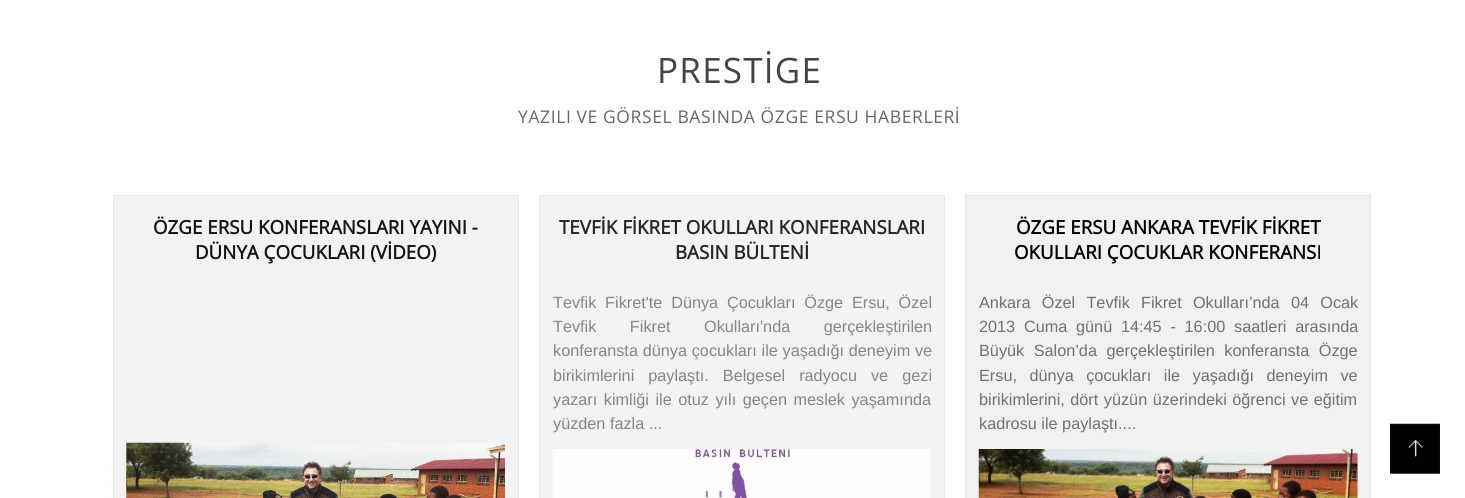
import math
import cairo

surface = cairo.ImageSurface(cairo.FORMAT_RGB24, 1465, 498)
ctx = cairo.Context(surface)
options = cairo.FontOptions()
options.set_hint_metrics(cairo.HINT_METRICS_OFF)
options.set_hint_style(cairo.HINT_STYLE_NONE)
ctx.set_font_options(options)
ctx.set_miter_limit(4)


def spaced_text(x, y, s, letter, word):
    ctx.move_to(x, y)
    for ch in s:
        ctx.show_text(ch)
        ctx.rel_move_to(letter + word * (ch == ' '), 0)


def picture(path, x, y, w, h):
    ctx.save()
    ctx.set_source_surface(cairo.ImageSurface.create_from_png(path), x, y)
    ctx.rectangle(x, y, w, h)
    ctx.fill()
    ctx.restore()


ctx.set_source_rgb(1, 1, 1)
ctx.paint()
ctx.select_font_face("Open Sans")
ctx.set_font_size(35)
ctx.set_source_rgb(0.267, 0.267, 0.267)
spaced_text(657, 83, "PRESTİGE", 1.25, 0)
ctx.set_font_size(17.5)
ctx.set_source_rgb(0.4, 0.4, 0.4)
spaced_text(518, 123, "YAZILI VE GÖRSEL BASINDA ÖZGE ERSU HABERLERİ", 0.6, 0)
ctx.rectangle(113.5, 195.5, 405, 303)
ctx.set_source_rgb(0.906, 0.906, 0.906)
ctx.set_line_width(1)
ctx.stroke()
ctx.set_source_rgb(0.949, 0.949, 0.949)
ctx.rectangle(114, 196, 404, 302)
ctx.fill()
ctx.select_font_face("Open Sans", cairo.FONT_SLANT_NORMAL, cairo.FONT_WEIGHT_BOLD)
ctx.set_font_size(18.75)
ctx.set_source_rgb(0.071, 0.071, 0.071)
ctx.move_to(153, 234)
ctx.show_text("ÖZGE ERSU KONFERANSLARI YAYINI -")
ctx.move_to(195, 259)
ctx.show_text("DÜNYA ÇOCUKLARI (VİDEO)")
picture("img1.png", 126, 442, 379, 56)
ctx.rectangle(539.5, 195.5, 405, 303)
ctx.set_source_rgb(0.914, 0.914, 0.914)
ctx.stroke()
ctx.set_source_rgb(0.953, 0.953, 0.953)
ctx.rectangle(540, 196, 404, 302)
ctx.fill()
ctx.set_source_rgb(0.145, 0.145, 0.145)
ctx.move_to(559, 234)
ctx.show_text("TEVFİK FİKRET OKULLARI KONFERANSLARI")
ctx.move_to(675, 259)
ctx.show_text("BASIN BÜLTENİ")
ctx.select_font_face("Liberation Sans")
ctx.set_font_size(16.25)
ctx.set_source_rgb(0.522, 0.522, 0.522)
spaced_text(553, 308, "Tevfik Fikret'te Dünya Çocukları Özge Ersu, Özel", 0, 4.25)
spaced_text(553, 332, "Tevfik Fikret Okulları'nda gerçekleştirilen", 0, 29)
spaced_text(553, 356, "konferansta dünya çocukları ile yaşadığı deneyim ve", 0, 0.25)
spaced_text(553, 381, "birikimlerini paylaştı. Belgesel radyocu ve gezi", 0, 9.5)
spaced_text(553, 405, "yazarı kimliği ile otuz yılı geçen meslek yaşamında", 0, 2)
ctx.move_to(553, 429)
ctx.show_text("yüzden fazla ...")
picture("img2.png", 552, 449, 379, 49)
ctx.rectangle(965.5, 195.5, 405, 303)
ctx.set_source_rgb(0.898, 0.898, 0.898)
ctx.stroke()
ctx.set_source_rgb(0.945, 0.945, 0.945)
ctx.rectangle(966, 196, 404, 302)
ctx.fill()
ctx.select_font_face("Open Sans", cairo.FONT_SLANT_NORMAL, cairo.FONT_WEIGHT_BOLD)
ctx.set_font_size(18.75)
ctx.set_source_rgb(0, 0, 0)
ctx.move_to(1016, 234)
ctx.show_text("ÖZGE ERSU ANKARA TEVFİK FİKRET")
ctx.move_to(1014, 259)
ctx.show_text("OKULLARI ÇOCUKLAR KONFERANSI")
ctx.select_font_face("Liberation Sans")
ctx.set_font_size(16.25)
ctx.set_source_rgb(0.439, 0.439, 0.439)
spaced_text(979, 308, "Ankara Özel Tevfik Fikret Okulları’nda 04 Ocak", 0, 6.75)
spaced_text(979, 332, "2013 Cuma günü 14:45 - 16:00 saatleri arasında", 0, 4.25)
spaced_text(979, 356, "Büyük Salon’da gerçekleştirilen konferansta Özge", 0, 5)
spaced_text(979, 381, "Ersu, dünya çocukları ile yaşadığı deneyim ve", 0, 8)
spaced_text(979, 405, "birikimlerini, dört yüzün üzerindeki öğrenci ve eğitim", 0, 1)
ctx.move_to(979, 429)
ctx.show_text("kadrosu ile paylaştı....")
picture("img3.png", 978, 449, 380, 49)
picture("img4.png", 1390, 423, 50, 51)
surface.write_to_png("page.png")
